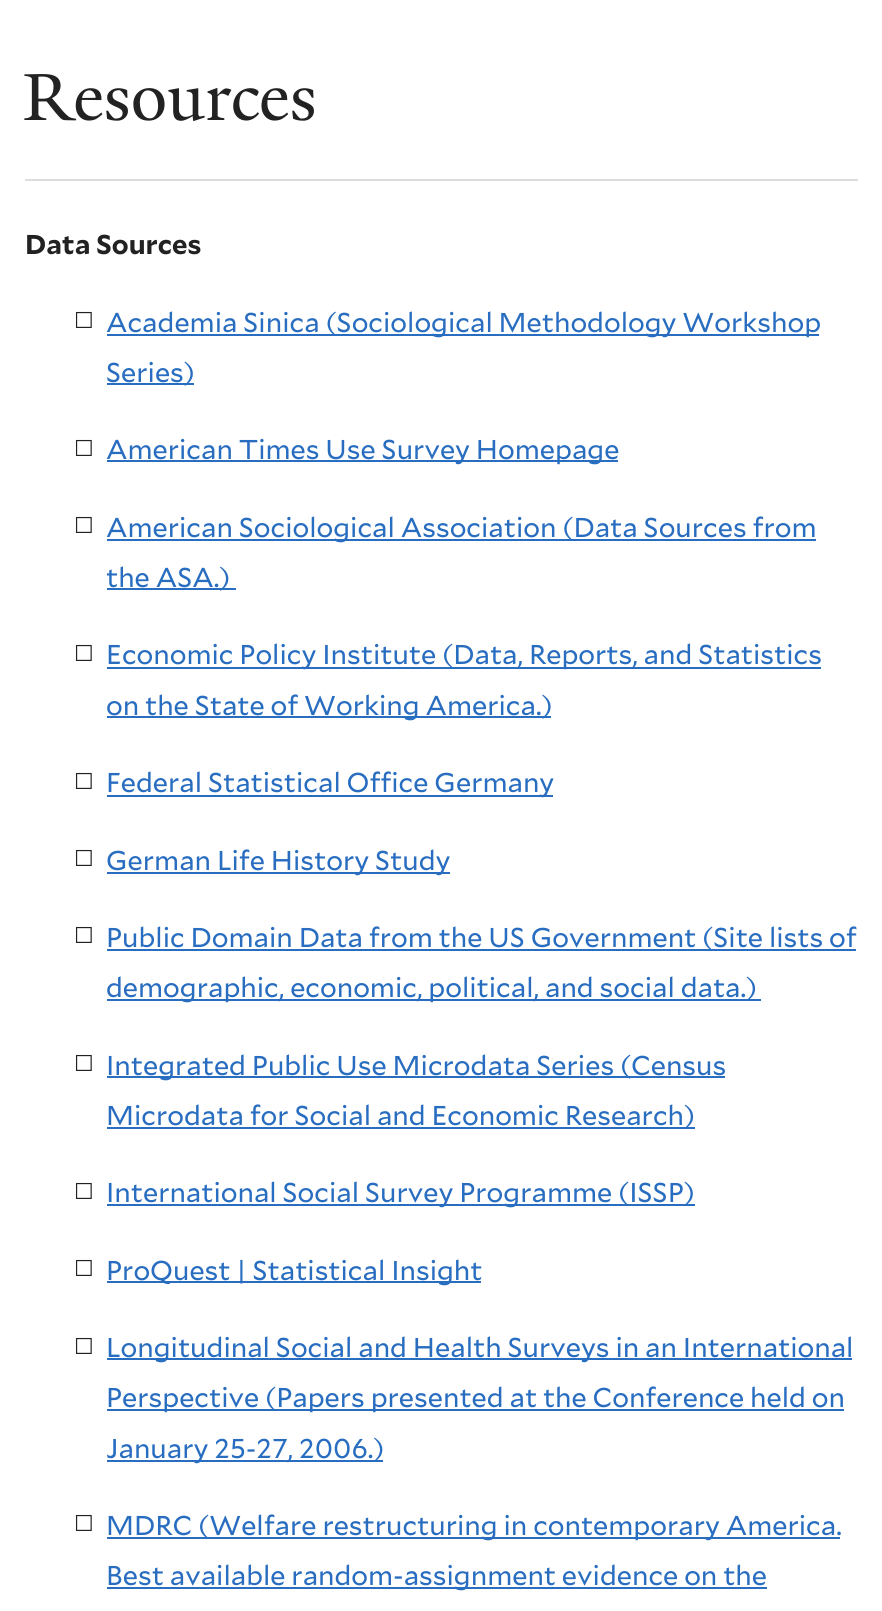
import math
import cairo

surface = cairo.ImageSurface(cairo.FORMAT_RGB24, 882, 1611)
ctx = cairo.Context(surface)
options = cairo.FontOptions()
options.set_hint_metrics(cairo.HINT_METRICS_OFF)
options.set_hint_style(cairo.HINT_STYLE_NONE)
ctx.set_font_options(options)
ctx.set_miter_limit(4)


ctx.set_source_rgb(1, 1, 1)
ctx.paint()
ctx.select_font_face("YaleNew")
ctx.set_font_size(72)
ctx.set_source_rgb(0.133, 0.133, 0.133)
ctx.move_to(23, 120)
ctx.show_text("Resources")
ctx.set_source_rgb(0.867, 0.867, 0.867)
ctx.rectangle(25, 179, 833, 2)
ctx.fill()
ctx.select_font_face("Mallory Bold", cairo.FONT_SLANT_NORMAL, cairo.FONT_WEIGHT_BOLD)
ctx.set_font_size(27.2)
ctx.set_source_rgb(0.133, 0.133, 0.133)
ctx.move_to(25, 254)
ctx.show_text("Data Sources")
ctx.select_font_face("DejaVu Sans")
ctx.set_font_size(22)
ctx.move_to(74, 328)
ctx.show_text("☐")
ctx.set_source_rgb(0.157, 0.427, 0.753)
ctx.rectangle(107, 334, 712, 2)
ctx.fill()
ctx.select_font_face("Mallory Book")
ctx.set_font_size(27.2)
ctx.move_to(106, 332)
ctx.show_text("Academia Sinica (Sociological Methodology Workshop")
ctx.rectangle(107, 383, 87, 2)
ctx.fill()
ctx.move_to(106, 382)
ctx.show_text("Series)")
ctx.select_font_face("DejaVu Sans")
ctx.set_font_size(22)
ctx.set_source_rgb(0.133, 0.133, 0.133)
ctx.move_to(74, 456)
ctx.show_text("☐")
ctx.set_source_rgb(0.157, 0.427, 0.753)
ctx.rectangle(107, 460, 511, 2)
ctx.fill()
ctx.select_font_face("Mallory Book")
ctx.set_font_size(27.2)
ctx.move_to(106, 459)
ctx.show_text("American Times Use Survey Homepage")
ctx.select_font_face("DejaVu Sans")
ctx.set_font_size(22)
ctx.set_source_rgb(0.133, 0.133, 0.133)
ctx.move_to(74, 533)
ctx.show_text("☐")
ctx.set_source_rgb(0.157, 0.427, 0.753)
ctx.rectangle(107, 539, 709, 2)
ctx.fill()
ctx.select_font_face("Mallory Book")
ctx.set_font_size(27.2)
ctx.move_to(106, 537)
ctx.show_text("American Sociological Association (Data Sources from")
ctx.rectangle(107, 588, 129, 2)
ctx.fill()
ctx.move_to(106, 587)
ctx.show_text("the ASA.)")
ctx.select_font_face("DejaVu Sans")
ctx.set_font_size(22)
ctx.set_source_rgb(0.133, 0.133, 0.133)
ctx.move_to(74, 661)
ctx.show_text("☐")
ctx.set_source_rgb(0.157, 0.427, 0.753)
ctx.rectangle(107, 667, 714, 2)
ctx.fill()
ctx.select_font_face("Mallory Book")
ctx.set_font_size(27.2)
ctx.move_to(106, 664)
ctx.show_text("Economic Policy Institute (Data, Reports, and Statistics")
ctx.rectangle(107, 716, 444, 2)
ctx.fill()
ctx.move_to(106, 715)
ctx.show_text("on the State of Working America.)")
ctx.select_font_face("DejaVu Sans")
ctx.set_font_size(22)
ctx.set_source_rgb(0.133, 0.133, 0.133)
ctx.move_to(74, 789)
ctx.show_text("☐")
ctx.set_source_rgb(0.157, 0.427, 0.753)
ctx.rectangle(107, 795, 446, 2)
ctx.fill()
ctx.select_font_face("Mallory Book")
ctx.set_font_size(27.2)
ctx.move_to(106, 792)
ctx.show_text("Federal Statistical Office Germany")
ctx.select_font_face("DejaVu Sans")
ctx.set_font_size(22)
ctx.set_source_rgb(0.133, 0.133, 0.133)
ctx.move_to(74, 866)
ctx.show_text("☐")
ctx.set_source_rgb(0.157, 0.427, 0.753)
ctx.rectangle(107, 872, 343, 2)
ctx.fill()
ctx.select_font_face("Mallory Book")
ctx.set_font_size(27.2)
ctx.move_to(106, 870)
ctx.show_text("German Life History Study")
ctx.select_font_face("DejaVu Sans")
ctx.set_font_size(22)
ctx.set_source_rgb(0.133, 0.133, 0.133)
ctx.move_to(74, 943)
ctx.show_text("☐")
ctx.set_source_rgb(0.157, 0.427, 0.753)
ctx.rectangle(107, 949, 749, 2)
ctx.fill()
ctx.select_font_face("Mallory Book")
ctx.set_font_size(27.2)
ctx.move_to(106, 947)
ctx.show_text("Public Domain Data from the US Government (Site lists of")
ctx.rectangle(107, 999, 654, 2)
ctx.fill()
ctx.move_to(106, 997)
ctx.show_text("demographic, economic, political, and social data.)")
ctx.select_font_face("DejaVu Sans")
ctx.set_font_size(22)
ctx.set_source_rgb(0.133, 0.133, 0.133)
ctx.move_to(74, 1071)
ctx.show_text("☐")
ctx.set_source_rgb(0.157, 0.427, 0.753)
ctx.rectangle(107, 1076, 618, 2)
ctx.fill()
ctx.select_font_face("Mallory Book")
ctx.set_font_size(27.2)
ctx.move_to(106, 1075)
ctx.show_text("Integrated Public Use Microdata Series (Census")
ctx.rectangle(107, 1127, 588, 2)
ctx.fill()
ctx.move_to(106, 1125)
ctx.show_text("Microdata for Social and Economic Research)")
ctx.select_font_face("DejaVu Sans")
ctx.set_font_size(22)
ctx.set_source_rgb(0.133, 0.133, 0.133)
ctx.move_to(74, 1199)
ctx.show_text("☐")
ctx.set_source_rgb(0.157, 0.427, 0.753)
ctx.rectangle(107, 1204, 588, 2)
ctx.fill()
ctx.select_font_face("Mallory Book")
ctx.set_font_size(27.2)
ctx.move_to(106, 1202)
ctx.show_text("International Social Survey Programme (ISSP)")
ctx.select_font_face("DejaVu Sans")
ctx.set_font_size(22)
ctx.set_source_rgb(0.133, 0.133, 0.133)
ctx.move_to(74, 1276)
ctx.show_text("☐")
ctx.set_source_rgb(0.157, 0.427, 0.753)
ctx.rectangle(107, 1281, 374, 2)
ctx.fill()
ctx.select_font_face("Mallory Book")
ctx.set_font_size(27.2)
ctx.move_to(106, 1280)
ctx.show_text("ProQuest | Statistical Insight")
ctx.select_font_face("DejaVu Sans")
ctx.set_font_size(22)
ctx.set_source_rgb(0.133, 0.133, 0.133)
ctx.move_to(74, 1354)
ctx.show_text("☐")
ctx.set_source_rgb(0.157, 0.427, 0.753)
ctx.rectangle(107, 1358, 745, 2)
ctx.fill()
ctx.select_font_face("Mallory Book")
ctx.set_font_size(27.2)
ctx.move_to(106, 1357)
ctx.show_text("Longitudinal Social and Health Surveys in an International")
ctx.rectangle(107, 1409, 737, 2)
ctx.fill()
ctx.move_to(106, 1407)
ctx.show_text("Perspective (Papers presented at the Conference held on")
ctx.rectangle(107, 1460, 276, 2)
ctx.fill()
ctx.move_to(106, 1458)
ctx.show_text("January 25-27, 2006.)")
ctx.select_font_face("DejaVu Sans")
ctx.set_font_size(22)
ctx.set_source_rgb(0.133, 0.133, 0.133)
ctx.move_to(74, 1531)
ctx.show_text("☐")
ctx.set_source_rgb(0.157, 0.427, 0.753)
ctx.rectangle(107, 1537, 733, 2)
ctx.fill()
ctx.select_font_face("Mallory Book")
ctx.set_font_size(27.2)
ctx.move_to(106, 1535)
ctx.show_text("MDRC (Welfare restructuring in contemporary America.")
ctx.rectangle(107, 1587, 660, 2)
ctx.fill()
ctx.move_to(106, 1585)
ctx.show_text("Best available random-assignment evidence on the")
surface.write_to_png("page.png")
